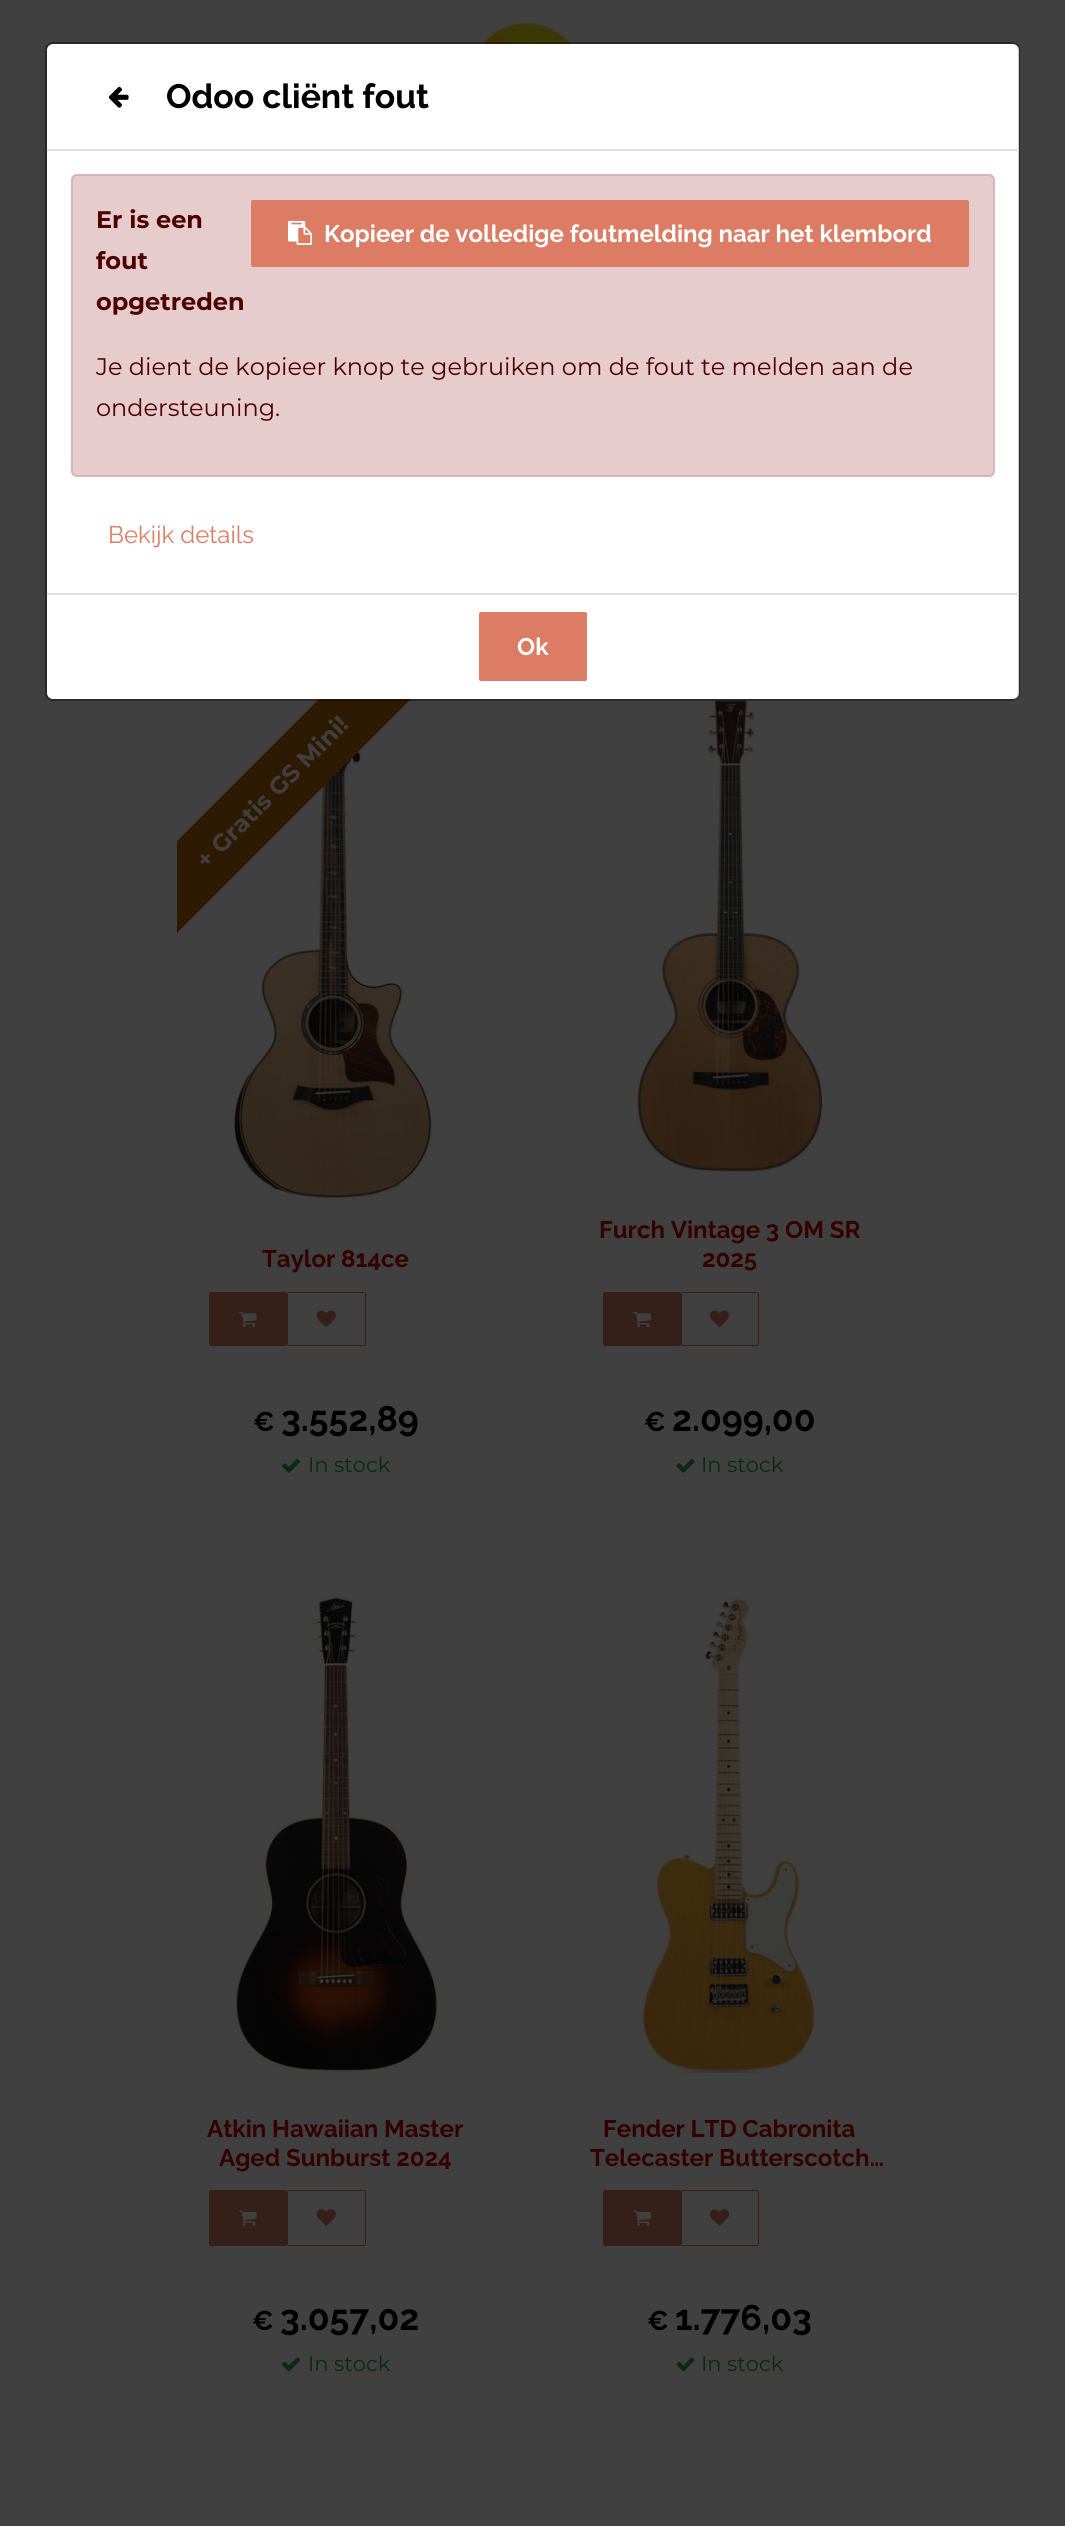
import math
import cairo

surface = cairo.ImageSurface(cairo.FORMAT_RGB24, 1065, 2526)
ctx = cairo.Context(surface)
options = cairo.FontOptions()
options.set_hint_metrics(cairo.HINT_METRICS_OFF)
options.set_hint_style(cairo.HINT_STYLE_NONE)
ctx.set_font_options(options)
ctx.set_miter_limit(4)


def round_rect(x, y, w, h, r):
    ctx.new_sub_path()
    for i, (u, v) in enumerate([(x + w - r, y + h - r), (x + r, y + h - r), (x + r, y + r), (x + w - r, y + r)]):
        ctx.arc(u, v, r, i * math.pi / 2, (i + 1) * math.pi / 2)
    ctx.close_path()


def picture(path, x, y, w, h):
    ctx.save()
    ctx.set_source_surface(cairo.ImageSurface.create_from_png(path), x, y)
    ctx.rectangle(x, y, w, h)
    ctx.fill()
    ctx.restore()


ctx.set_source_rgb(0.251, 0.251, 0.251)
ctx.paint()
picture("img3.png", 482, 22, 90, 22)
picture("img4.png", 233, 699, 203, 500)
ctx.save()
ctx.rectangle(177, 698, 318, 504)
ctx.clip()
ctx.set_source_rgb(0.18, 0.098, 0.008)
ctx.new_path()
ctx.move_to(71, 947)
ctx.line_to(427, 591)
ctx.line_to(473, 637)
ctx.line_to(117, 993)
ctx.close_path()
ctx.fill()
ctx.restore()
picture("img8.png", 635, 699, 192, 474)
round_rect(46, 43, 973, 657, 7)
ctx.set_source_rgba(0, 0, 0, 0.2)
ctx.stroke()
ctx.set_source_rgb(1, 1, 1)
round_rect(47, 44, 972, 655, 6)
ctx.fill()
round_rect(46, 43, 973, 657, 7)
ctx.set_source_rgba(0, 0, 0, 0.2)
ctx.stroke()
ctx.set_source_rgb(0.871, 0.886, 0.902)
ctx.rectangle(47, 149, 972, 2)
ctx.fill()
picture("img1.png", 108, 86, 21, 22)
ctx.select_font_face("Raleway", cairo.FONT_SLANT_NORMAL, cairo.FONT_WEIGHT_BOLD)
ctx.set_font_size(33.75)
ctx.set_source_rgb(0, 0, 0)
ctx.move_to(166, 108)
ctx.show_text("Odoo cliënt fout")
ctx.set_source_rgb(0.902, 0.8, 0.8)
round_rect(72, 175, 922, 301, 5)
ctx.fill_preserve()
ctx.set_source_rgb(0.855, 0.702, 0.702)
ctx.stroke()
ctx.select_font_face("Montserrat", cairo.FONT_SLANT_NORMAL, cairo.FONT_WEIGHT_BOLD)
ctx.set_font_size(24)
ctx.set_source_rgb(0.306, 0, 0)
ctx.move_to(96, 228)
ctx.show_text("Er is een")
ctx.move_to(96, 269)
ctx.show_text("fout")
ctx.move_to(96, 310)
ctx.show_text("opgetreden")
ctx.set_source_rgb(0.863, 0.486, 0.392)
round_rect(252, 201, 716, 65, 1)
ctx.fill_preserve()
ctx.stroke()
picture("img2.png", 288, 220, 24, 25)
ctx.select_font_face("Raleway", cairo.FONT_SLANT_NORMAL, cairo.FONT_WEIGHT_BOLD)
ctx.set_source_rgb(1, 1, 1)
ctx.move_to(324, 242)
ctx.show_text("Kopieer de volledige foutmelding naar het klembord")
ctx.select_font_face("Montserrat")
ctx.set_source_rgb(0.306, 0, 0)
ctx.move_to(96, 375)
ctx.show_text("Je dient de kopieer knop te gebruiken om de fout te melden aan de")
ctx.move_to(96, 416)
ctx.show_text("ondersteuning.")
ctx.select_font_face("Raleway")
ctx.set_source_rgb(0.863, 0.486, 0.392)
ctx.move_to(108, 543)
ctx.show_text("Bekijk details")
ctx.set_source_rgb(0.871, 0.886, 0.902)
ctx.rectangle(47, 593, 972, 2)
ctx.fill()
ctx.set_source_rgb(0.863, 0.486, 0.392)
round_rect(480, 613, 106, 67, 1)
ctx.fill_preserve()
ctx.stroke()
ctx.select_font_face("Raleway", cairo.FONT_SLANT_NORMAL, cairo.FONT_WEIGHT_BOLD)
ctx.set_source_rgb(1, 1, 1)
ctx.move_to(517, 655)
ctx.show_text("Ok")
ctx.select_font_face("Montserrat", cairo.FONT_SLANT_NORMAL, cairo.FONT_WEIGHT_BOLD)
ctx.set_source_rgb(0.251, 0.247, 0.243)
ctx.save()
ctx.translate(206, 870)
ctx.rotate(-45 * math.pi / 180)
ctx.move_to(0, 0)
ctx.show_text("+ Gratis GS Mini!")
ctx.restore()
ctx.select_font_face("Raleway", cairo.FONT_SLANT_NORMAL, cairo.FONT_WEIGHT_BOLD)
ctx.set_source_rgb(0.204, 0, 0)
ctx.move_to(262, 1267)
ctx.show_text("Taylor 814ce")
ctx.set_source_rgb(0.216, 0.122, 0.098)
round_rect(209.5, 1292.5, 77, 53, 1.5)
ctx.fill_preserve()
ctx.set_line_width(1)
ctx.stroke()
picture("img5.png", 238, 1312, 19, 16)
round_rect(287.5, 1292.5, 78, 53, 1.5)
ctx.stroke()
picture("img6.png", 316, 1310, 20, 18)
ctx.set_font_size(27)
ctx.set_source_rgb(0, 0, 0)
ctx.move_to(253, 1431)
ctx.show_text("€")
ctx.set_font_size(35.5)
ctx.move_to(281, 1431)
ctx.show_text("3.552,89")
picture("img7.png", 281, 1458, 20, 15)
ctx.select_font_face("Montserrat")
ctx.set_font_size(21)
ctx.set_source_rgb(0.039, 0.165, 0.071)
ctx.move_to(308, 1472)
ctx.show_text("In stock")
ctx.select_font_face("Raleway", cairo.FONT_SLANT_NORMAL, cairo.FONT_WEIGHT_BOLD)
ctx.set_font_size(24)
ctx.set_source_rgb(0.204, 0, 0)
ctx.move_to(599, 1238)
ctx.show_text("Furch Vintage 3 OM SR")
ctx.move_to(702, 1267)
ctx.show_text("2025")
ctx.set_source_rgb(0.216, 0.122, 0.098)
round_rect(603.5, 1292.5, 77, 53, 1.5)
ctx.fill_preserve()
ctx.stroke()
picture("img9.png", 633, 1312, 18, 16)
round_rect(681.5, 1292.5, 77, 53, 1.5)
ctx.stroke()
picture("img10.png", 709, 1310, 21, 18)
ctx.set_font_size(27)
ctx.set_source_rgb(0, 0, 0)
ctx.move_to(644, 1431)
ctx.show_text("€")
ctx.set_font_size(35.5)
ctx.move_to(672, 1431)
ctx.show_text("2.099,00")
picture("img11.png", 676, 1458, 19, 15)
ctx.select_font_face("Montserrat")
ctx.set_font_size(21)
ctx.set_source_rgb(0.039, 0.165, 0.071)
ctx.move_to(701, 1472)
ctx.show_text("In stock")
picture("img12.png", 234, 1596, 205, 477)
ctx.select_font_face("Raleway", cairo.FONT_SLANT_NORMAL, cairo.FONT_WEIGHT_BOLD)
ctx.set_font_size(24)
ctx.set_source_rgb(0.204, 0, 0)
ctx.move_to(207, 2137)
ctx.show_text("Atkin Hawaiian Master")
ctx.move_to(219, 2166)
ctx.show_text("Aged Sunburst 2024")
ctx.set_source_rgb(0.216, 0.122, 0.098)
round_rect(209.5, 2190.5, 77, 55, 1.5)
ctx.fill_preserve()
ctx.stroke()
picture("img13.png", 238, 2210, 19, 16)
round_rect(287.5, 2190.5, 78, 55, 1.5)
ctx.stroke()
picture("img14.png", 316, 2209, 20, 17)
ctx.set_font_size(27)
ctx.set_source_rgb(0, 0, 0)
ctx.move_to(252, 2330)
ctx.show_text("€")
ctx.set_font_size(35.5)
ctx.move_to(280, 2330)
ctx.show_text("3.057,02")
picture("img15.png", 281, 2357, 20, 15)
ctx.select_font_face("Montserrat")
ctx.set_font_size(21)
ctx.set_source_rgb(0.039, 0.165, 0.071)
ctx.move_to(308, 2371)
ctx.show_text("In stock")
picture("img16.png", 641, 1596, 177, 477)
ctx.select_font_face("Raleway", cairo.FONT_SLANT_NORMAL, cairo.FONT_WEIGHT_BOLD)
ctx.set_font_size(24)
ctx.set_source_rgb(0.204, 0, 0)
ctx.move_to(603, 2137)
ctx.show_text("Fender LTD Cabronita")
ctx.move_to(590, 2166)
ctx.show_text("Telecaster Butterscotch…")
ctx.set_source_rgb(0.216, 0.122, 0.098)
round_rect(603.5, 2190.5, 77, 55, 1.5)
ctx.fill_preserve()
ctx.stroke()
picture("img17.png", 633, 2210, 18, 16)
round_rect(681.5, 2190.5, 77, 55, 1.5)
ctx.stroke()
picture("img18.png", 709, 2209, 21, 17)
ctx.set_font_size(27)
ctx.set_source_rgb(0, 0, 0)
ctx.move_to(647, 2330)
ctx.show_text("€")
ctx.set_font_size(35.5)
ctx.move_to(675, 2330)
ctx.show_text("1.776,03")
picture("img19.png", 676, 2357, 19, 15)
ctx.select_font_face("Montserrat")
ctx.set_font_size(21)
ctx.set_source_rgb(0.039, 0.165, 0.071)
ctx.move_to(701, 2371)
ctx.show_text("In stock")
surface.write_to_png("page.png")
